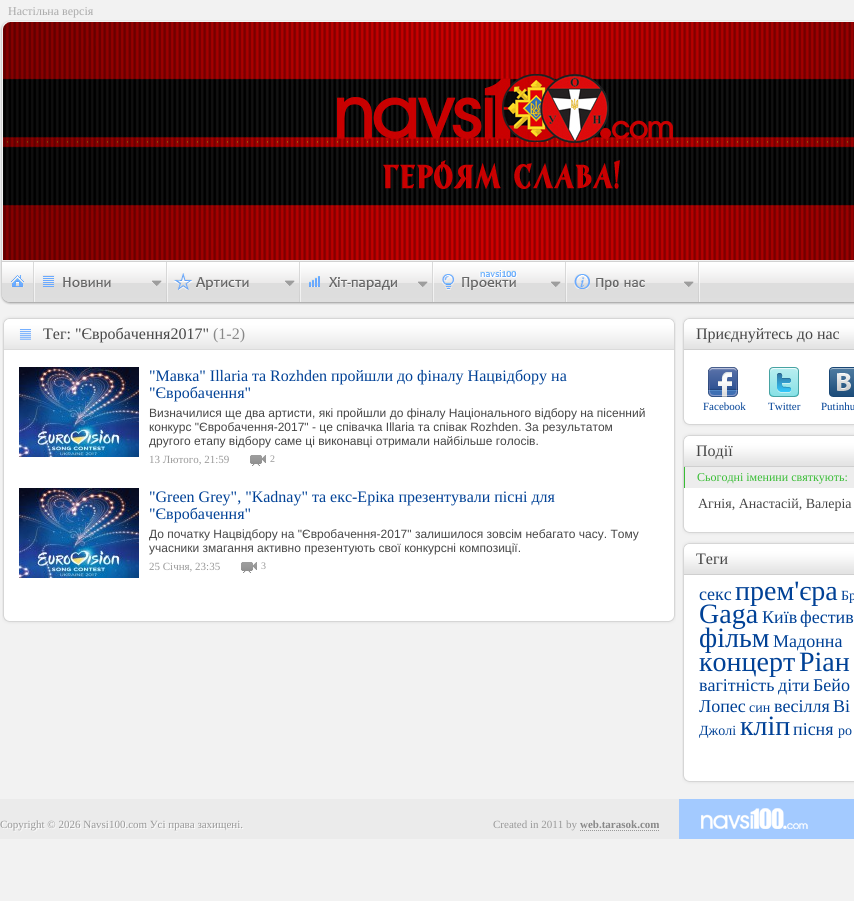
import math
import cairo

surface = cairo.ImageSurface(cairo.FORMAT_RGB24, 854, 901)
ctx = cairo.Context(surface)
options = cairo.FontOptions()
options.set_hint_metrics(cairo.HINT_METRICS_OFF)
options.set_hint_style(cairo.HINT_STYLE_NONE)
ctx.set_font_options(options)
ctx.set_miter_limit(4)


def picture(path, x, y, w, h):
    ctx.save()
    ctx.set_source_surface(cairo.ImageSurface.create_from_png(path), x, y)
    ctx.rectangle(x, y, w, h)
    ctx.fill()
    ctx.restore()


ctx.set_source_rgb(0.949, 0.949, 0.949)
ctx.paint()
picture("img1.png", 10, 20, 844, 285)
ctx.select_font_face("Liberation Serif")
ctx.set_font_size(12)
ctx.set_source_rgb(0.667, 0.667, 0.667)
ctx.move_to(8, 15)
ctx.show_text("Настільна версія")
picture("img2.png", 0, 20, 10, 285)
picture("img3.png", 3, 22, 851, 238)
picture("img4.png", 3, 22, 7, 7)
picture("img5.png", 11, 262, 23, 40)
picture("img6.png", 34, 262, 133, 40)
picture("img7.png", 167, 262, 133, 40)
picture("img8.png", 300, 262, 133, 40)
picture("img9.png", 433, 262, 133, 40)
picture("img10.png", 566, 262, 134, 40)
picture("img11.png", 2, 350, 674, 266)
picture("img12.png", 2, 315, 674, 35)
picture("img13.png", 19, 329, 12, 11)
ctx.set_font_size(16)
ctx.set_source_rgb(0.275, 0.275, 0.275)
ctx.move_to(43, 339)
ctx.show_text("Тег: \"Євробачення2017\"")
ctx.set_source_rgb(0.533, 0.533, 0.533)
ctx.move_to(213, 339)
ctx.show_text("(1-2)")
picture("img14.png", 19, 367, 120, 90)
ctx.set_source_rgb(0, 0.255, 0.588)
ctx.move_to(149, 381)
ctx.show_text("\"Мавка\" Illaria та Rozhden пройшли до фіналу Нацвідбору на")
ctx.move_to(149, 398)
ctx.show_text("\"Євробачення\"")
ctx.select_font_face("Liberation Sans")
ctx.set_font_size(12)
ctx.set_source_rgb(0.275, 0.275, 0.275)
ctx.move_to(149, 417)
ctx.show_text("Визначилися ще два артисти, які пройшли до фіналу Національного відбору на пісенний")
ctx.move_to(149, 431)
ctx.show_text("конкурс \"Євробачення-2017\" - це співачка Illaria та співак Rozhden. За результатом")
ctx.move_to(149, 445)
ctx.show_text("другого етапу відбору саме ці виконавці отримали найбільше голосів.")
ctx.select_font_face("Liberation Serif")
ctx.set_font_size(11)
ctx.set_source_rgb(0.6, 0.6, 0.6)
ctx.move_to(149, 463)
ctx.show_text("13 Лютого, 21:59")
picture("img15.png", 250, 455, 16, 11)
ctx.set_font_size(10)
ctx.move_to(270, 462)
ctx.show_text("2")
picture("img14.png", 19, 488, 120, 90)
ctx.set_font_size(16)
ctx.set_source_rgb(0, 0.255, 0.588)
ctx.move_to(149, 502)
ctx.show_text("\"Green Grey\", \"Kadnay\" та екс-Еріка презентували пісні для")
ctx.move_to(149, 519)
ctx.show_text("\"Євробачення\"")
ctx.select_font_face("Liberation Sans")
ctx.set_font_size(12)
ctx.set_source_rgb(0.275, 0.275, 0.275)
ctx.move_to(149, 538)
ctx.show_text("До початку Нацвідбору на \"Євробачення-2017\" залишилося зовсім небагато часу. Тому")
ctx.move_to(149, 552)
ctx.show_text("учасники змагання активно презентують свої конкурсні композиції.")
ctx.select_font_face("Liberation Serif")
ctx.set_font_size(11)
ctx.set_source_rgb(0.6, 0.6, 0.6)
ctx.move_to(149, 570)
ctx.show_text("25 Січня, 23:35")
picture("img15.png", 241, 562, 16, 11)
ctx.set_font_size(10)
ctx.move_to(261, 569)
ctx.show_text("3")
picture("img16.png", 2, 616, 674, 9)
picture("img17.png", 682, 350, 172, 69)
picture("img18.png", 682, 315, 172, 35)
ctx.set_font_size(16)
ctx.set_source_rgb(0.275, 0.275, 0.275)
ctx.move_to(696, 339)
ctx.show_text("Приєднуйтесь до нас")
picture("img19.png", 708, 367, 30, 30)
ctx.set_font_size(11)
ctx.set_source_rgb(0, 0.255, 0.588)
ctx.move_to(703, 410)
ctx.show_text("Facebook")
picture("img20.png", 769, 367, 30, 30)
ctx.move_to(768, 410)
ctx.show_text("Twitter")
picture("img21.png", 829, 367, 25, 30)
ctx.move_to(821, 410)
ctx.show_text("Putinhu")
picture("img22.png", 682, 419, 172, 9)
picture("img23.png", 682, 467, 172, 60)
picture("img18.png", 682, 432, 172, 35)
ctx.set_font_size(16)
ctx.set_source_rgb(0.275, 0.275, 0.275)
ctx.move_to(696, 456)
ctx.show_text("Події")
ctx.set_source_rgb(0.929, 0.929, 0.929)
ctx.rectangle(685, 467, 169, 21)
ctx.fill()
ctx.set_source_rgb(0.224, 0.741, 0.208)
ctx.rectangle(684, 467, 1, 21)
ctx.fill()
ctx.set_font_size(12)
ctx.move_to(697, 481)
ctx.show_text("Сьогодні іменини святкують:")
ctx.set_font_size(14)
ctx.set_source_rgb(0.275, 0.275, 0.275)
ctx.move_to(698, 508)
ctx.show_text("Агнія, Анастасій, Валеріа")
picture("img22.png", 682, 527, 172, 9)
picture("img24.png", 682, 575, 172, 201)
picture("img18.png", 682, 540, 172, 35)
ctx.set_font_size(16)
ctx.move_to(696, 564)
ctx.show_text("Теги")
ctx.set_font_size(18)
ctx.set_source_rgb(0, 0.255, 0.588)
ctx.move_to(699, 600)
ctx.show_text("секс")
ctx.set_font_size(28)
ctx.move_to(735, 600)
ctx.show_text("прем'єра")
ctx.set_font_size(14)
ctx.move_to(841, 600)
ctx.show_text("Бр")
ctx.set_font_size(28)
ctx.move_to(699, 623)
ctx.show_text("Gaga")
ctx.set_font_size(18)
ctx.move_to(762, 623)
ctx.show_text("Київ")
ctx.move_to(800, 623)
ctx.show_text("фестив")
ctx.set_font_size(28)
ctx.move_to(699, 647)
ctx.show_text("фільм")
ctx.set_font_size(18)
ctx.move_to(773, 647)
ctx.show_text("Мадонна")
ctx.set_font_size(28)
ctx.move_to(699, 671)
ctx.show_text("концерт")
ctx.move_to(799, 671)
ctx.show_text("Ріан")
ctx.set_font_size(18)
ctx.move_to(699, 691)
ctx.show_text("вагітність")
ctx.move_to(778, 691)
ctx.show_text("діти")
ctx.move_to(813, 691)
ctx.show_text("Бейо")
ctx.move_to(699, 712)
ctx.show_text("Лопес")
ctx.set_font_size(14)
ctx.move_to(749, 712)
ctx.show_text("син")
ctx.set_font_size(18)
ctx.move_to(774, 712)
ctx.show_text("весілля")
ctx.move_to(833, 712)
ctx.show_text("Ві")
ctx.set_font_size(14)
ctx.move_to(699, 735)
ctx.show_text("Джолі")
ctx.set_font_size(28)
ctx.move_to(740, 735)
ctx.show_text("кліп")
ctx.set_font_size(18)
ctx.move_to(793, 735)
ctx.show_text("пісня")
ctx.set_font_size(14)
ctx.move_to(838, 735)
ctx.show_text("ро")
picture("img22.png", 682, 776, 172, 9)
ctx.set_source_rgb(0.918, 0.918, 0.918)
ctx.rectangle(0, 799, 679, 40)
ctx.fill()
ctx.set_font_size(11)
ctx.set_source_rgb(1, 1, 1)
ctx.move_to(1, 829)
ctx.show_text("Copyright © 2026 Navsi100.com Усі права захищені.")
ctx.set_source_rgb(0.6, 0.6, 0.6)
ctx.move_to(0, 828)
ctx.show_text("Copyright © 2026 Navsi100.com Усі права захищені.")
ctx.move_to(493, 828)
ctx.show_text("Created in 2011 by")
ctx.select_font_face("Liberation Serif", cairo.FONT_SLANT_NORMAL, cairo.FONT_WEIGHT_BOLD)
ctx.set_source_rgb(0.533, 0.533, 0.533)
ctx.move_to(580, 828)
ctx.show_text("web.tarasok.com")
ctx.new_path()
ctx.move_to(580, 830.5)
ctx.line_to(659, 830.5)
ctx.set_source_rgb(0.6, 0.6, 0.6)
ctx.set_line_width(1)
ctx.set_dash([1, 1])
ctx.stroke()
ctx.set_source_rgb(0.639, 0.792, 1)
ctx.rectangle(679, 799, 175, 40)
ctx.fill()
picture("img25.png", 701, 808, 107, 21)
surface.write_to_png("page.png")
